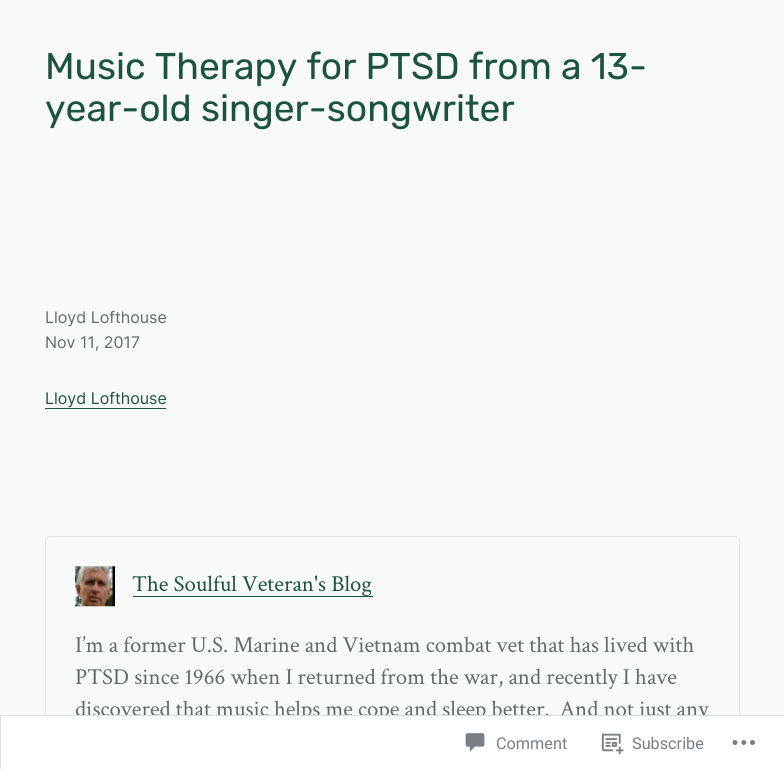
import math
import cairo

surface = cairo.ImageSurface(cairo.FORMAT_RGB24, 784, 769)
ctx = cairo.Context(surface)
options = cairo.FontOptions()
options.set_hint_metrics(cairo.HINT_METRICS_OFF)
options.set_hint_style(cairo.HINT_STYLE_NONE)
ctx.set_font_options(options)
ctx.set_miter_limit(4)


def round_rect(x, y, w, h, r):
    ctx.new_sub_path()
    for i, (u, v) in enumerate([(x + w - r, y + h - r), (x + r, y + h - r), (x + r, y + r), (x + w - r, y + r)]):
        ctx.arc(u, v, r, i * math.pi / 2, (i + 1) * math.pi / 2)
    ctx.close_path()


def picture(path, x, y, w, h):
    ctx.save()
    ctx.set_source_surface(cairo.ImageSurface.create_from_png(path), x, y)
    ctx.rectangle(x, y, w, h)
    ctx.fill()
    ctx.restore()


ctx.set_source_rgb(0.969, 0.973, 0.973)
ctx.paint()
ctx.select_font_face("Rubik")
ctx.set_font_size(37.25)
ctx.set_source_rgb(0.102, 0.329, 0.247)
ctx.move_to(45, 79)
ctx.show_text("Music Therapy for PTSD from a 13-")
ctx.move_to(45, 121)
ctx.show_text("year-old singer-songwriter")
ctx.select_font_face("Inter")
ctx.set_font_size(16)
ctx.set_source_rgb(0.388, 0.416, 0.416)
ctx.move_to(45, 323)
ctx.show_text("Lloyd Lofthouse")
ctx.move_to(45, 348)
ctx.show_text("Nov 11, 2017")
ctx.set_source_rgb(0.102, 0.329, 0.247)
ctx.move_to(45, 404)
ctx.show_text("Lloyd Lofthouse")
ctx.rectangle(45, 408, 121, 1)
ctx.fill()
round_rect(45.5, 536.5, 694, 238, 4.5)
ctx.set_source_rgb(0.89, 0.902, 0.91)
ctx.set_line_width(1)
ctx.stroke()
picture("img1.png", 75, 566, 40, 41)
ctx.set_source_rgb(0.102, 0.329, 0.247)
ctx.rectangle(133, 596, 240, 1)
ctx.fill()
ctx.select_font_face("Crimson Text")
ctx.set_font_size(22.85)
ctx.move_to(132, 591)
ctx.show_text("The Soulful Veteran's Blog")
ctx.set_source_rgb(0.388, 0.416, 0.416)
ctx.move_to(75, 652)
ctx.show_text("I’m a former U.S. Marine and Vietnam combat vet that has lived with")
ctx.move_to(75, 684)
ctx.show_text("PTSD since 1966 when I returned from the war, and recently I have")
ctx.move_to(75, 716)
ctx.show_text("discovered that music helps me cope and sleep better.  And not just any")
ctx.set_source_rgba(1, 1, 1, 0.98)
ctx.rectangle(0, 715, 784, 54)
ctx.fill()
ctx.rectangle(0.5, 715.5, 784, 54)
ctx.set_source_rgba(0.863, 0.863, 0.871, 0.98)
ctx.stroke()
picture("img2.png", 465, 733, 20, 19)
ctx.select_font_face("Roboto")
ctx.set_font_size(16.25)
ctx.set_source_rgb(0.482, 0.498, 0.518)
ctx.move_to(496, 749)
ctx.show_text("Comment")
picture("img3.png", 601, 733, 23, 22)
ctx.move_to(632, 749)
ctx.show_text("Subscribe")
picture("img4.png", 732, 740, 23, 5)
surface.write_to_png("page.png")
